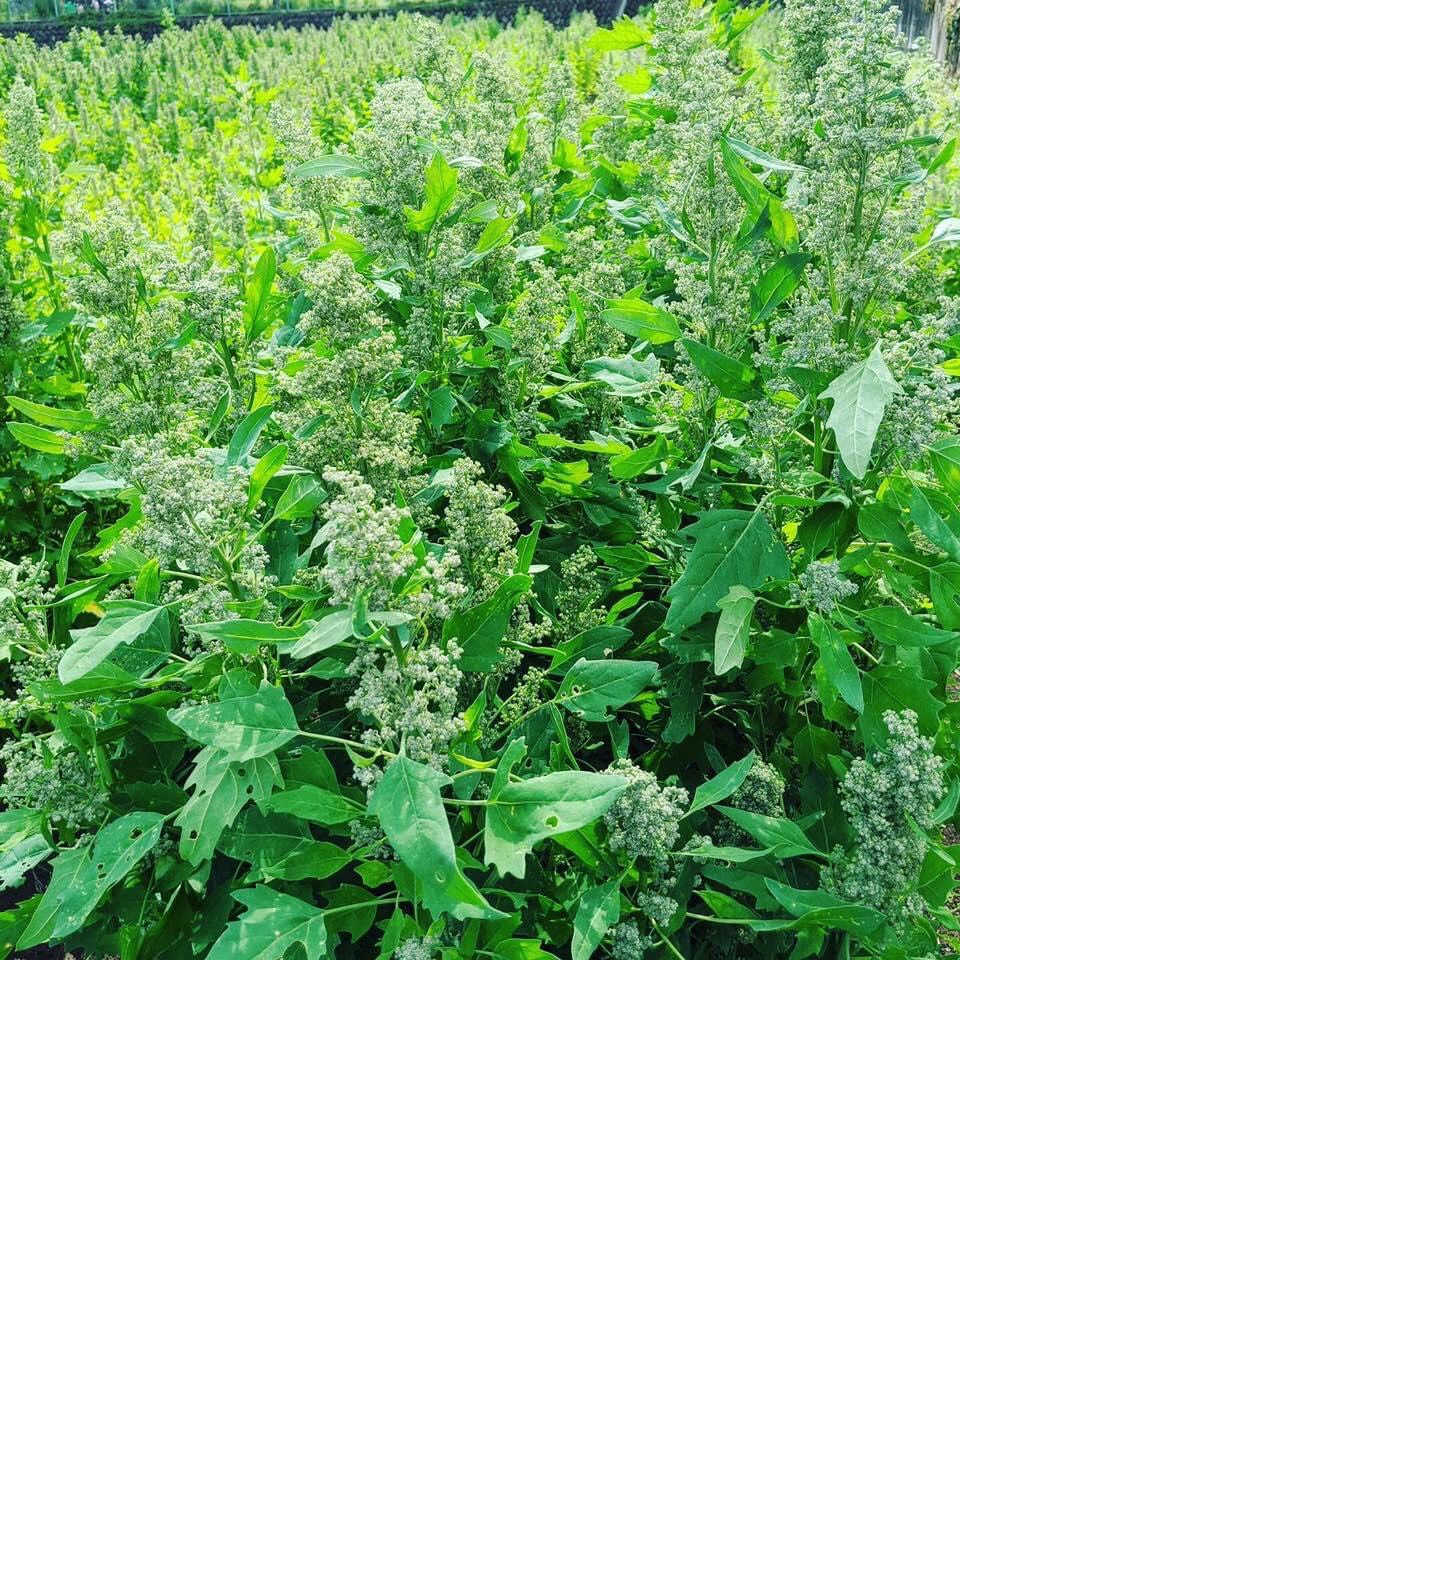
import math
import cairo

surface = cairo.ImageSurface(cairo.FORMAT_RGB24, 1436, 1587)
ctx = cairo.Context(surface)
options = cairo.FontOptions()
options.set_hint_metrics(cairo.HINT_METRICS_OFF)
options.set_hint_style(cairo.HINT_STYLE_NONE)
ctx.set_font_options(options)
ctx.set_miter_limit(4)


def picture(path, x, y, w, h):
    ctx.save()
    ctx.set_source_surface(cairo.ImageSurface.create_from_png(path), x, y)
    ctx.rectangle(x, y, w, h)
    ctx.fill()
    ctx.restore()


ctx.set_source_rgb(1, 1, 1)
ctx.paint()
picture("img1.png", 0, 0, 960, 960)
surface.write_to_png("page.png")
